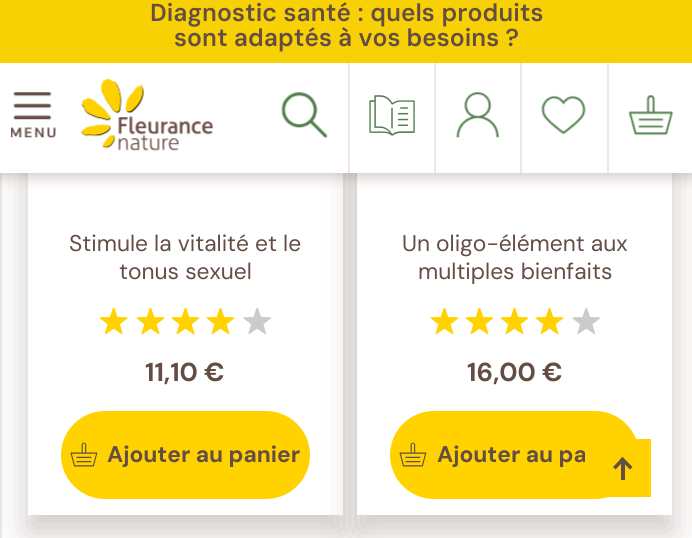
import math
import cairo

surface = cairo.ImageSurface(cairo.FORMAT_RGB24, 692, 538)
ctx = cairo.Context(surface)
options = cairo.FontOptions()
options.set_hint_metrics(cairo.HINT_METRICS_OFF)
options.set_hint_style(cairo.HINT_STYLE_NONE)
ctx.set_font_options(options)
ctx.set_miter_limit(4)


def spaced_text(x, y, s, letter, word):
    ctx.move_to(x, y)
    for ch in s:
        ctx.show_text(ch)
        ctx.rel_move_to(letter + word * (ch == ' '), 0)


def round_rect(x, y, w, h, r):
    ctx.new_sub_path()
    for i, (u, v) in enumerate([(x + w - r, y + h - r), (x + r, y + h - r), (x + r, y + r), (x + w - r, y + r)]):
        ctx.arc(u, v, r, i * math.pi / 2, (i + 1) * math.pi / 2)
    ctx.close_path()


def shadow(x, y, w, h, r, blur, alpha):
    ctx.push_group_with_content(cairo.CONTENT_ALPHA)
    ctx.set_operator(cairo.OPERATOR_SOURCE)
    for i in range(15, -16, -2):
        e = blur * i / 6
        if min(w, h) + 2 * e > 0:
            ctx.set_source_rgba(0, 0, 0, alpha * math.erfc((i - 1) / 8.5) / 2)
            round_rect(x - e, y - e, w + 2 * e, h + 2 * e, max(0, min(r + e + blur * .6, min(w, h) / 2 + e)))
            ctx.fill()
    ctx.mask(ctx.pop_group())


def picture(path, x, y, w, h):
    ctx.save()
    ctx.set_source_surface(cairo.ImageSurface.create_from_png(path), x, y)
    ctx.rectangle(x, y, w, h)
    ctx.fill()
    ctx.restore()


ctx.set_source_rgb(1, 1, 1)
ctx.paint()
ctx.set_source_rgb(0.918, 0.91, 0.898)
ctx.rectangle(0, 173, 2, 365)
ctx.fill()
ctx.set_source_rgb(0.392, 0.302, 0.271)
shadow(28, -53, 315, 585, 0, 17.5, 0.3)
ctx.set_source_rgb(1, 1, 1)
ctx.rectangle(28, 173, 315, 342)
ctx.fill()
ctx.set_source_rgb(0.392, 0.302, 0.271)
shadow(357, -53, 315, 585, 0, 17.5, 0.3)
ctx.set_source_rgb(1, 1, 1)
ctx.rectangle(357, 173, 315, 342)
ctx.fill()
ctx.set_source_rgb(0.424, 0.294, 0.247)
shadow(0, 4, 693, 173, 0, 7, 0.3)
ctx.set_source_rgb(1, 1, 1)
ctx.rectangle(0, 63, 692, 110)
ctx.fill()
ctx.set_source_rgb(0.965, 0.82, 0.012)
ctx.rectangle(0, 0, 692, 63)
ctx.fill()
ctx.select_font_face("DM Sans SemiBold")
ctx.set_font_size(24.5)
ctx.set_source_rgb(0.392, 0.302, 0.271)
spaced_text(150, 21, "Diagnostic santé : quels produits", 0, 0.5)
ctx.move_to(174, 46)
ctx.show_text("sont adaptés à vos besoins ?")
picture("img1.png", 11, 92, 45, 47)
picture("img2.png", 80, 78, 134, 73)
ctx.set_source_rgb(0.918, 0.91, 0.898)
ctx.rectangle(348, 63, 2, 110)
ctx.fill()
picture("img3.png", 281, 92, 47, 47)
ctx.rectangle(434, 63, 2, 110)
ctx.fill()
picture("img4.png", 369, 95, 46, 41)
ctx.rectangle(520, 63, 2, 110)
ctx.fill()
picture("img5.png", 456, 92, 44, 46)
ctx.rectangle(607, 63, 2, 110)
ctx.fill()
picture("img6.png", 541, 95, 45, 40)
picture("img7.png", 628, 95, 46, 41)
ctx.select_font_face("DM Sans")
ctx.set_font_size(22.75)
ctx.set_source_rgb(0.392, 0.302, 0.271)
ctx.move_to(69, 251)
ctx.show_text("Stimule la vitalité et le")
ctx.move_to(119, 279)
ctx.show_text("tonus sexuel")
picture("img8.png", 100, 307, 28, 28)
picture("img9.png", 136, 307, 29, 28)
picture("img9.png", 171, 307, 29, 28)
picture("img9.png", 206, 307, 29, 28)
picture("img10.png", 243, 307, 28, 28)
ctx.select_font_face("DM Sans", cairo.FONT_SLANT_NORMAL, cairo.FONT_WEIGHT_BOLD)
ctx.set_font_size(26)
ctx.move_to(145, 381)
ctx.show_text("11,10 €")
ctx.set_source_rgb(1, 0.824, 0)
round_rect(61, 411, 249, 88, 44)
ctx.fill()
picture("img11.png", 70, 442, 28, 25)
ctx.select_font_face("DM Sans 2", cairo.FONT_SLANT_NORMAL, cairo.FONT_WEIGHT_BOLD)
ctx.set_font_size(22.75)
ctx.set_source_rgb(0.392, 0.302, 0.271)
ctx.move_to(107, 462)
ctx.show_text("Ajouter au panier")
ctx.select_font_face("DM Sans")
ctx.move_to(402, 251)
ctx.show_text("Un oligo-élément aux")
ctx.move_to(418, 279)
ctx.show_text("multiples bienfaits")
picture("img9.png", 430, 307, 29, 28)
picture("img9.png", 465, 307, 29, 28)
picture("img12.png", 500, 307, 29, 28)
picture("img9.png", 535, 307, 29, 28)
picture("img13.png", 572, 307, 28, 28)
ctx.select_font_face("DM Sans", cairo.FONT_SLANT_NORMAL, cairo.FONT_WEIGHT_BOLD)
ctx.set_font_size(26)
ctx.move_to(467, 381)
ctx.show_text("16,00 €")
ctx.set_source_rgb(1, 0.824, 0)
round_rect(390, 411, 249, 88, 44)
ctx.fill()
picture("img11.png", 399, 442, 28, 25)
ctx.select_font_face("DM Sans 2", cairo.FONT_SLANT_NORMAL, cairo.FONT_WEIGHT_BOLD)
ctx.set_font_size(22.75)
ctx.set_source_rgb(0.392, 0.302, 0.271)
ctx.move_to(437, 462)
ctx.show_text("Ajouter au pa")
ctx.set_source_rgb(1, 0.824, 0)
ctx.rectangle(608, 439, 43, 58)
ctx.fill()
ctx.set_source_rgb(0.392, 0.302, 0.271)
ctx.new_path()
ctx.move_to(622.5, 457)
ctx.line_to(632.5, 467)
ctx.line_to(630, 469.5)
ctx.line_to(620, 459.5)
ctx.close_path()
ctx.fill()
ctx.new_path()
ctx.move_to(622.5, 457)
ctx.line_to(625, 459.5)
ctx.line_to(615.5, 469.5)
ctx.line_to(613, 467)
ctx.close_path()
ctx.fill()
ctx.rectangle(621, 462, 4, 18)
ctx.fill()
surface.write_to_png("page.png")
